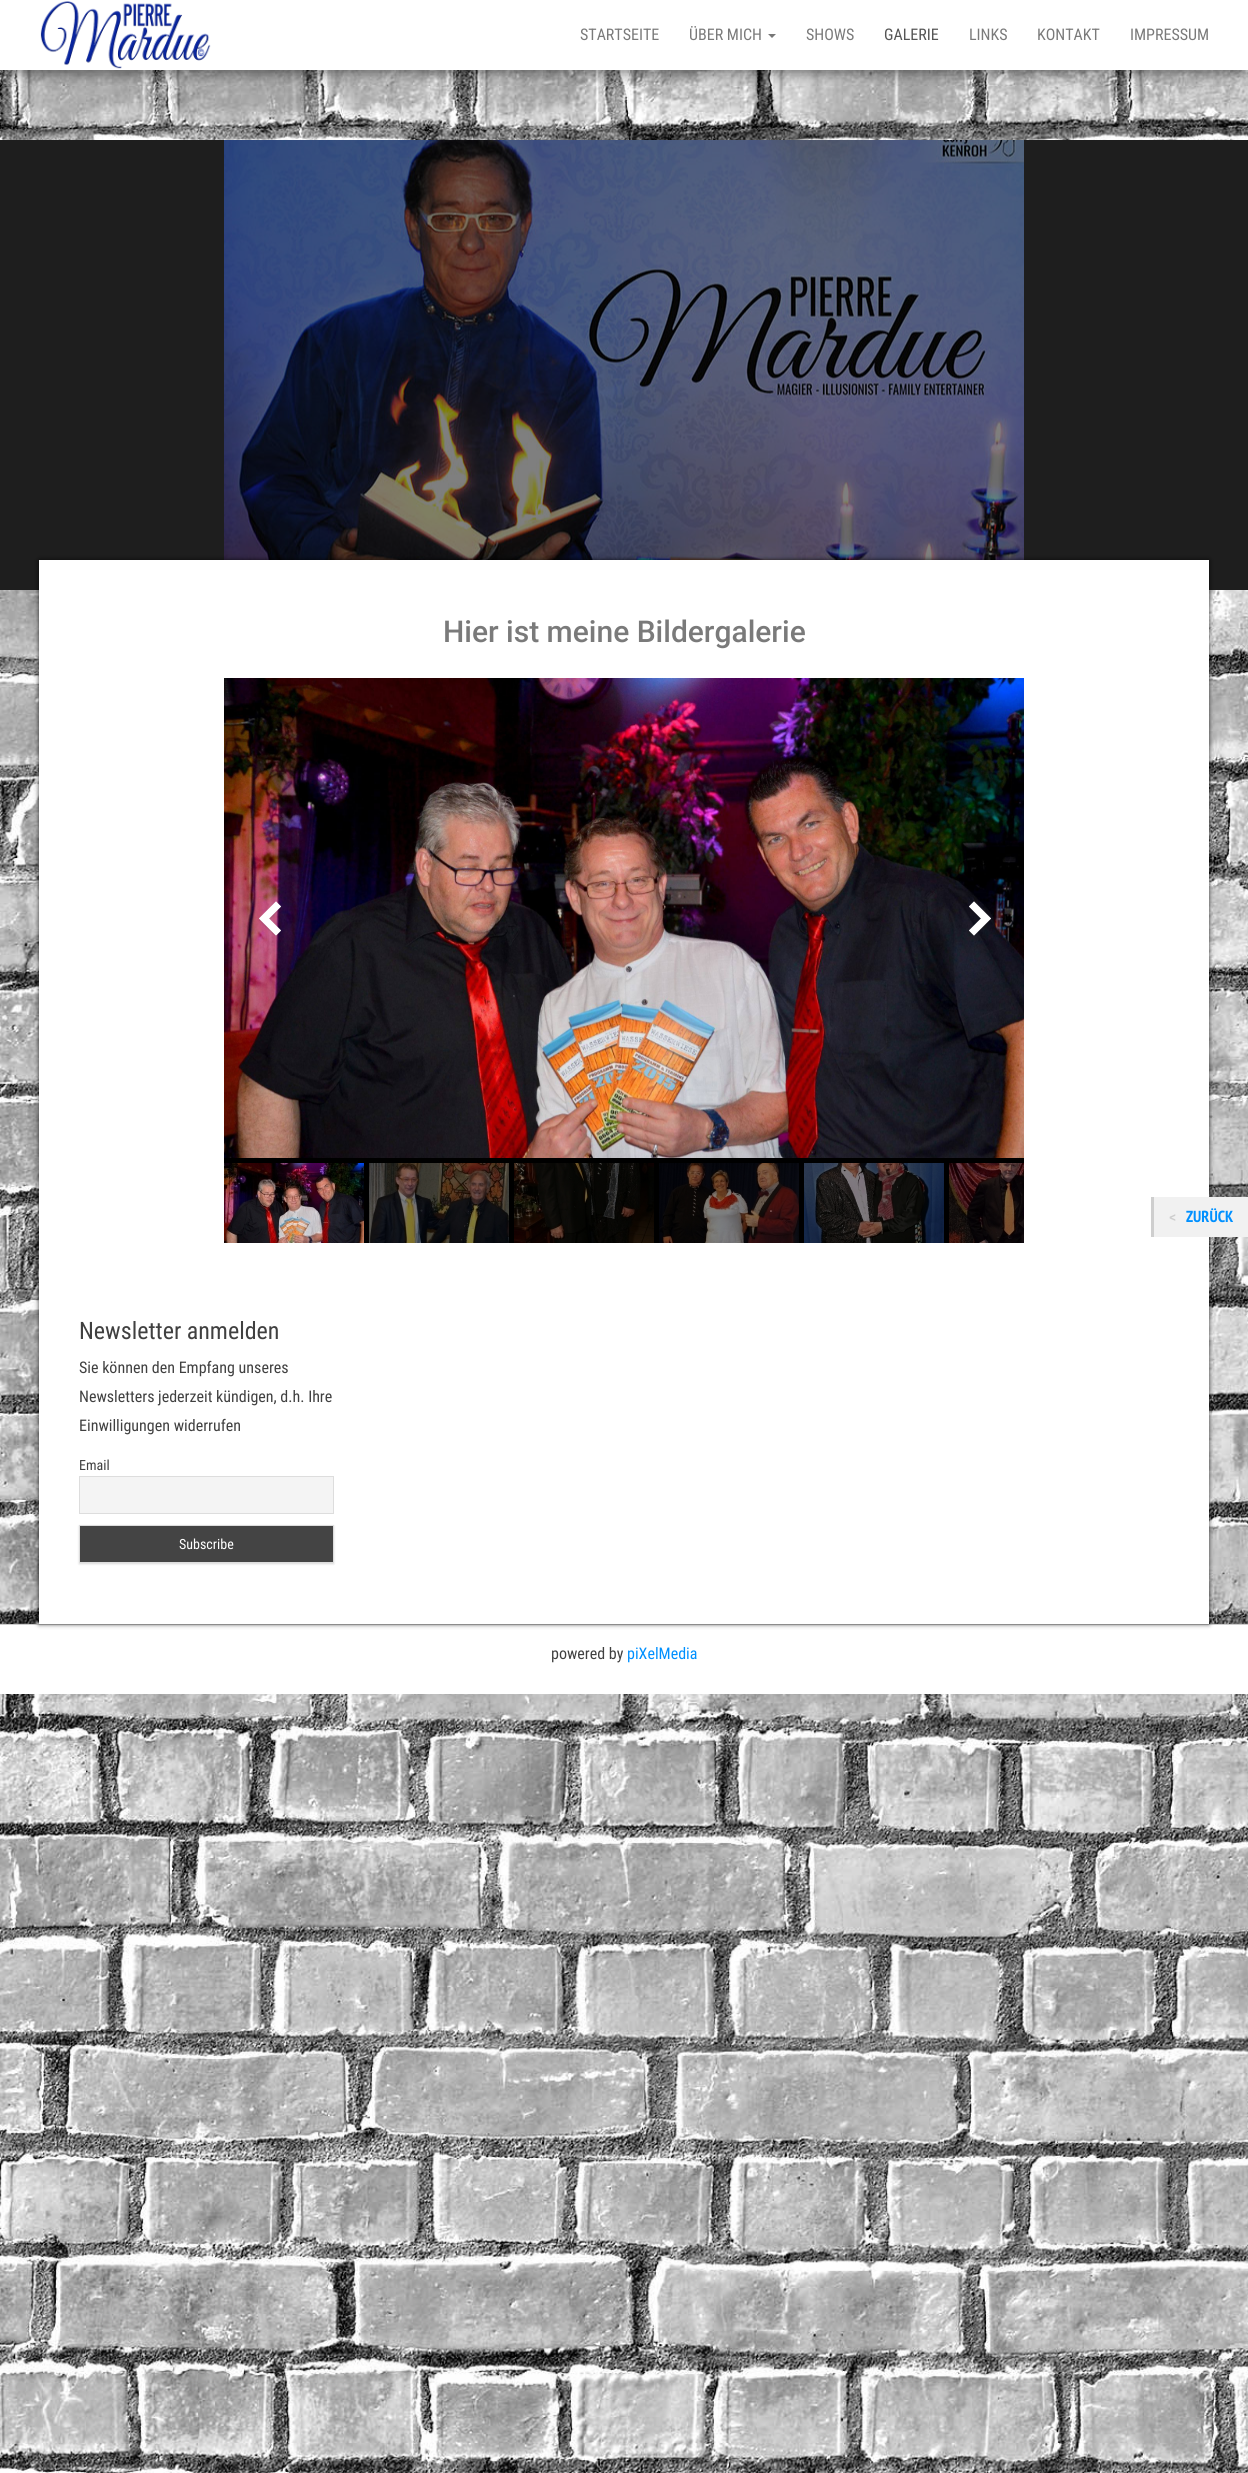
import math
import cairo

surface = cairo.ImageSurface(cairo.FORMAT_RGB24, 1248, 2473)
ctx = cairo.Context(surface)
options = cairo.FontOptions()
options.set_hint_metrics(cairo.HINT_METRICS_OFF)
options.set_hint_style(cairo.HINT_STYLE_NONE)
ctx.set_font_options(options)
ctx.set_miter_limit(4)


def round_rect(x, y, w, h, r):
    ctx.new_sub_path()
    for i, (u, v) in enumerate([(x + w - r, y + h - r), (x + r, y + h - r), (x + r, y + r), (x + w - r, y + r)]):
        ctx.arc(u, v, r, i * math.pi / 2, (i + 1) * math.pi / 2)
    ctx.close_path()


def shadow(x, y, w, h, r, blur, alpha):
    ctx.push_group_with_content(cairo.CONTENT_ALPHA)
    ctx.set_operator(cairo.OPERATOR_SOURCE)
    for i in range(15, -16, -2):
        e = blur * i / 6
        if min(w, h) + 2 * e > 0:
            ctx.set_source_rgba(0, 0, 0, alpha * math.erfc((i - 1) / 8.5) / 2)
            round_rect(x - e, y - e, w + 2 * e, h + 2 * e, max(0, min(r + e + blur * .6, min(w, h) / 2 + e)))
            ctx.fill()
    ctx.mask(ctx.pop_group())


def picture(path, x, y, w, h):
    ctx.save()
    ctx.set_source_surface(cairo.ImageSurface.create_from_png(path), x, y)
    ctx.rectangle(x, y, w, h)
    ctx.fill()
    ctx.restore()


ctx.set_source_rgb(1, 1, 1)
ctx.paint()
picture("img1.png", 0, 70, 1248, 2403)
ctx.set_source_rgb(0, 0, 0)
shadow(5, 13, 1238, 60, 0, 5, 0.2)
shadow(0, 3, 1248, 70, 0, 10, 0.12)
shadow(12, 22, 1224, 46, 0, 10, 0.42)
ctx.set_source_rgb(1, 1, 1)
ctx.rectangle(0, 0, 1248, 70)
ctx.fill()
picture("img2.png", 40, 1, 171, 68)
ctx.select_font_face("Roboto Condensed")
ctx.set_font_size(16)
ctx.set_source_rgb(0.478, 0.478, 0.478)
ctx.move_to(580, 40)
ctx.show_text("STARTSEITE")
ctx.move_to(689, 40)
ctx.show_text("ÜBER MICH")
ctx.set_source_rgb(0.467, 0.467, 0.467)
ctx.new_path()
ctx.move_to(768, 34)
ctx.line_to(776, 34)
ctx.line_to(772, 38)
ctx.close_path()
ctx.fill()
ctx.set_source_rgb(0.478, 0.478, 0.478)
ctx.move_to(806, 40)
ctx.show_text("SHOWS")
ctx.set_source_rgb(0.333, 0.333, 0.333)
ctx.move_to(884, 40)
ctx.show_text("GALERIE")
ctx.set_source_rgb(0.478, 0.478, 0.478)
ctx.move_to(969, 40)
ctx.show_text("LINKS")
ctx.move_to(1037, 40)
ctx.show_text("KONTAKT")
ctx.move_to(1130, 40)
ctx.show_text("IMPRESSUM")
ctx.set_source_rgb(0.235, 0.235, 0.235)
ctx.rectangle(0, 140, 1248, 450)
ctx.fill()
picture("img3.png", 224, 140, 800, 420)
ctx.set_source_rgba(0, 0, 0, 0.5)
ctx.rectangle(0, 140, 1248, 450)
ctx.fill()
ctx.set_source_rgb(1, 1, 1)
ctx.rectangle(0, 1625, 1248, 69)
ctx.fill()
ctx.set_source_rgb(0.8, 0.8, 0.8)
ctx.rectangle(0, 1624, 1248, 1)
ctx.fill()
ctx.set_source_rgb(0, 0, 0)
shadow(39, 560, 1170, 1064, 0, 2.5, 0.75)
ctx.set_source_rgb(1, 1, 1)
ctx.rectangle(39, 560, 1170, 1064)
ctx.fill()
ctx.select_font_face("Roboto Medium")
ctx.set_font_size(30)
ctx.set_source_rgb(0.478, 0.478, 0.478)
ctx.move_to(443, 642)
ctx.show_text("Hier ist meine Bildergalerie")
ctx.set_source_rgb(0, 0, 0)
ctx.rectangle(224, 1158, 800, 85)
ctx.fill()
picture("img4.png", 224, 678, 800, 480)
picture("img5.png", 259, 901, 22, 35)
picture("img6.png", 969, 901, 22, 35)
picture("img7.png", 224, 1163, 140, 80)
picture("img8.png", 369, 1163, 140, 80)
picture("img9.png", 514, 1163, 140, 80)
picture("img10.png", 659, 1163, 140, 80)
picture("img11.png", 804, 1163, 140, 80)
picture("img12.png", 949, 1163, 75, 80)
ctx.select_font_face("Roboto Condensed")
ctx.set_font_size(24)
ctx.set_source_rgb(0.251, 0.251, 0.251)
ctx.move_to(79, 1339)
ctx.show_text("Newsletter anmelden")
ctx.set_font_size(16)
ctx.move_to(79, 1373)
ctx.show_text("Sie können den Empfang unseres")
ctx.move_to(79, 1402)
ctx.show_text("Newsletters jederzeit kündigen, d.h. Ihre")
ctx.move_to(79, 1431)
ctx.show_text("Einwilligungen widerrufen")
ctx.set_font_size(14)
ctx.move_to(79, 1470)
ctx.show_text("Email")
ctx.set_source_rgb(0.957, 0.957, 0.957)
ctx.rectangle(79.5, 1476.5, 254, 37)
ctx.fill_preserve()
ctx.set_source_rgb(0.867, 0.867, 0.867)
ctx.set_line_width(1)
ctx.stroke()
ctx.set_source_rgb(0, 0, 0)
shadow(79, 1526, 255, 38, 0, 1, 0.15)
ctx.set_source_rgb(0.267, 0.267, 0.267)
ctx.rectangle(79.5, 1525.5, 254, 37)
ctx.fill_preserve()
ctx.set_source_rgb(0.867, 0.867, 0.867)
ctx.stroke()
ctx.set_source_rgb(1, 1, 1)
ctx.move_to(179, 1549)
ctx.show_text("Subscribe")
ctx.set_font_size(16)
ctx.set_source_rgb(0.251, 0.251, 0.251)
ctx.move_to(551, 1659)
ctx.show_text("powered by")
ctx.set_source_rgb(0, 0.565, 1)
ctx.move_to(627, 1659)
ctx.show_text("piXelMedia")
ctx.set_source_rgb(0.945, 0.945, 0.945)
ctx.rectangle(1154, 1197, 94, 40)
ctx.fill()
ctx.set_source_rgb(0.808, 0.808, 0.808)
ctx.rectangle(1151, 1197, 3, 40)
ctx.fill()
ctx.select_font_face("Cabin", cairo.FONT_SLANT_NORMAL, cairo.FONT_WEIGHT_BOLD)
ctx.move_to(1169, 1222)
ctx.show_text("<")
ctx.select_font_face("PT Sans Narrow", cairo.FONT_SLANT_NORMAL, cairo.FONT_WEIGHT_BOLD)
ctx.set_source_rgb(0, 0.565, 1)
ctx.move_to(1186, 1222)
ctx.show_text("ZURÜCK")
surface.write_to_png("page.png")
